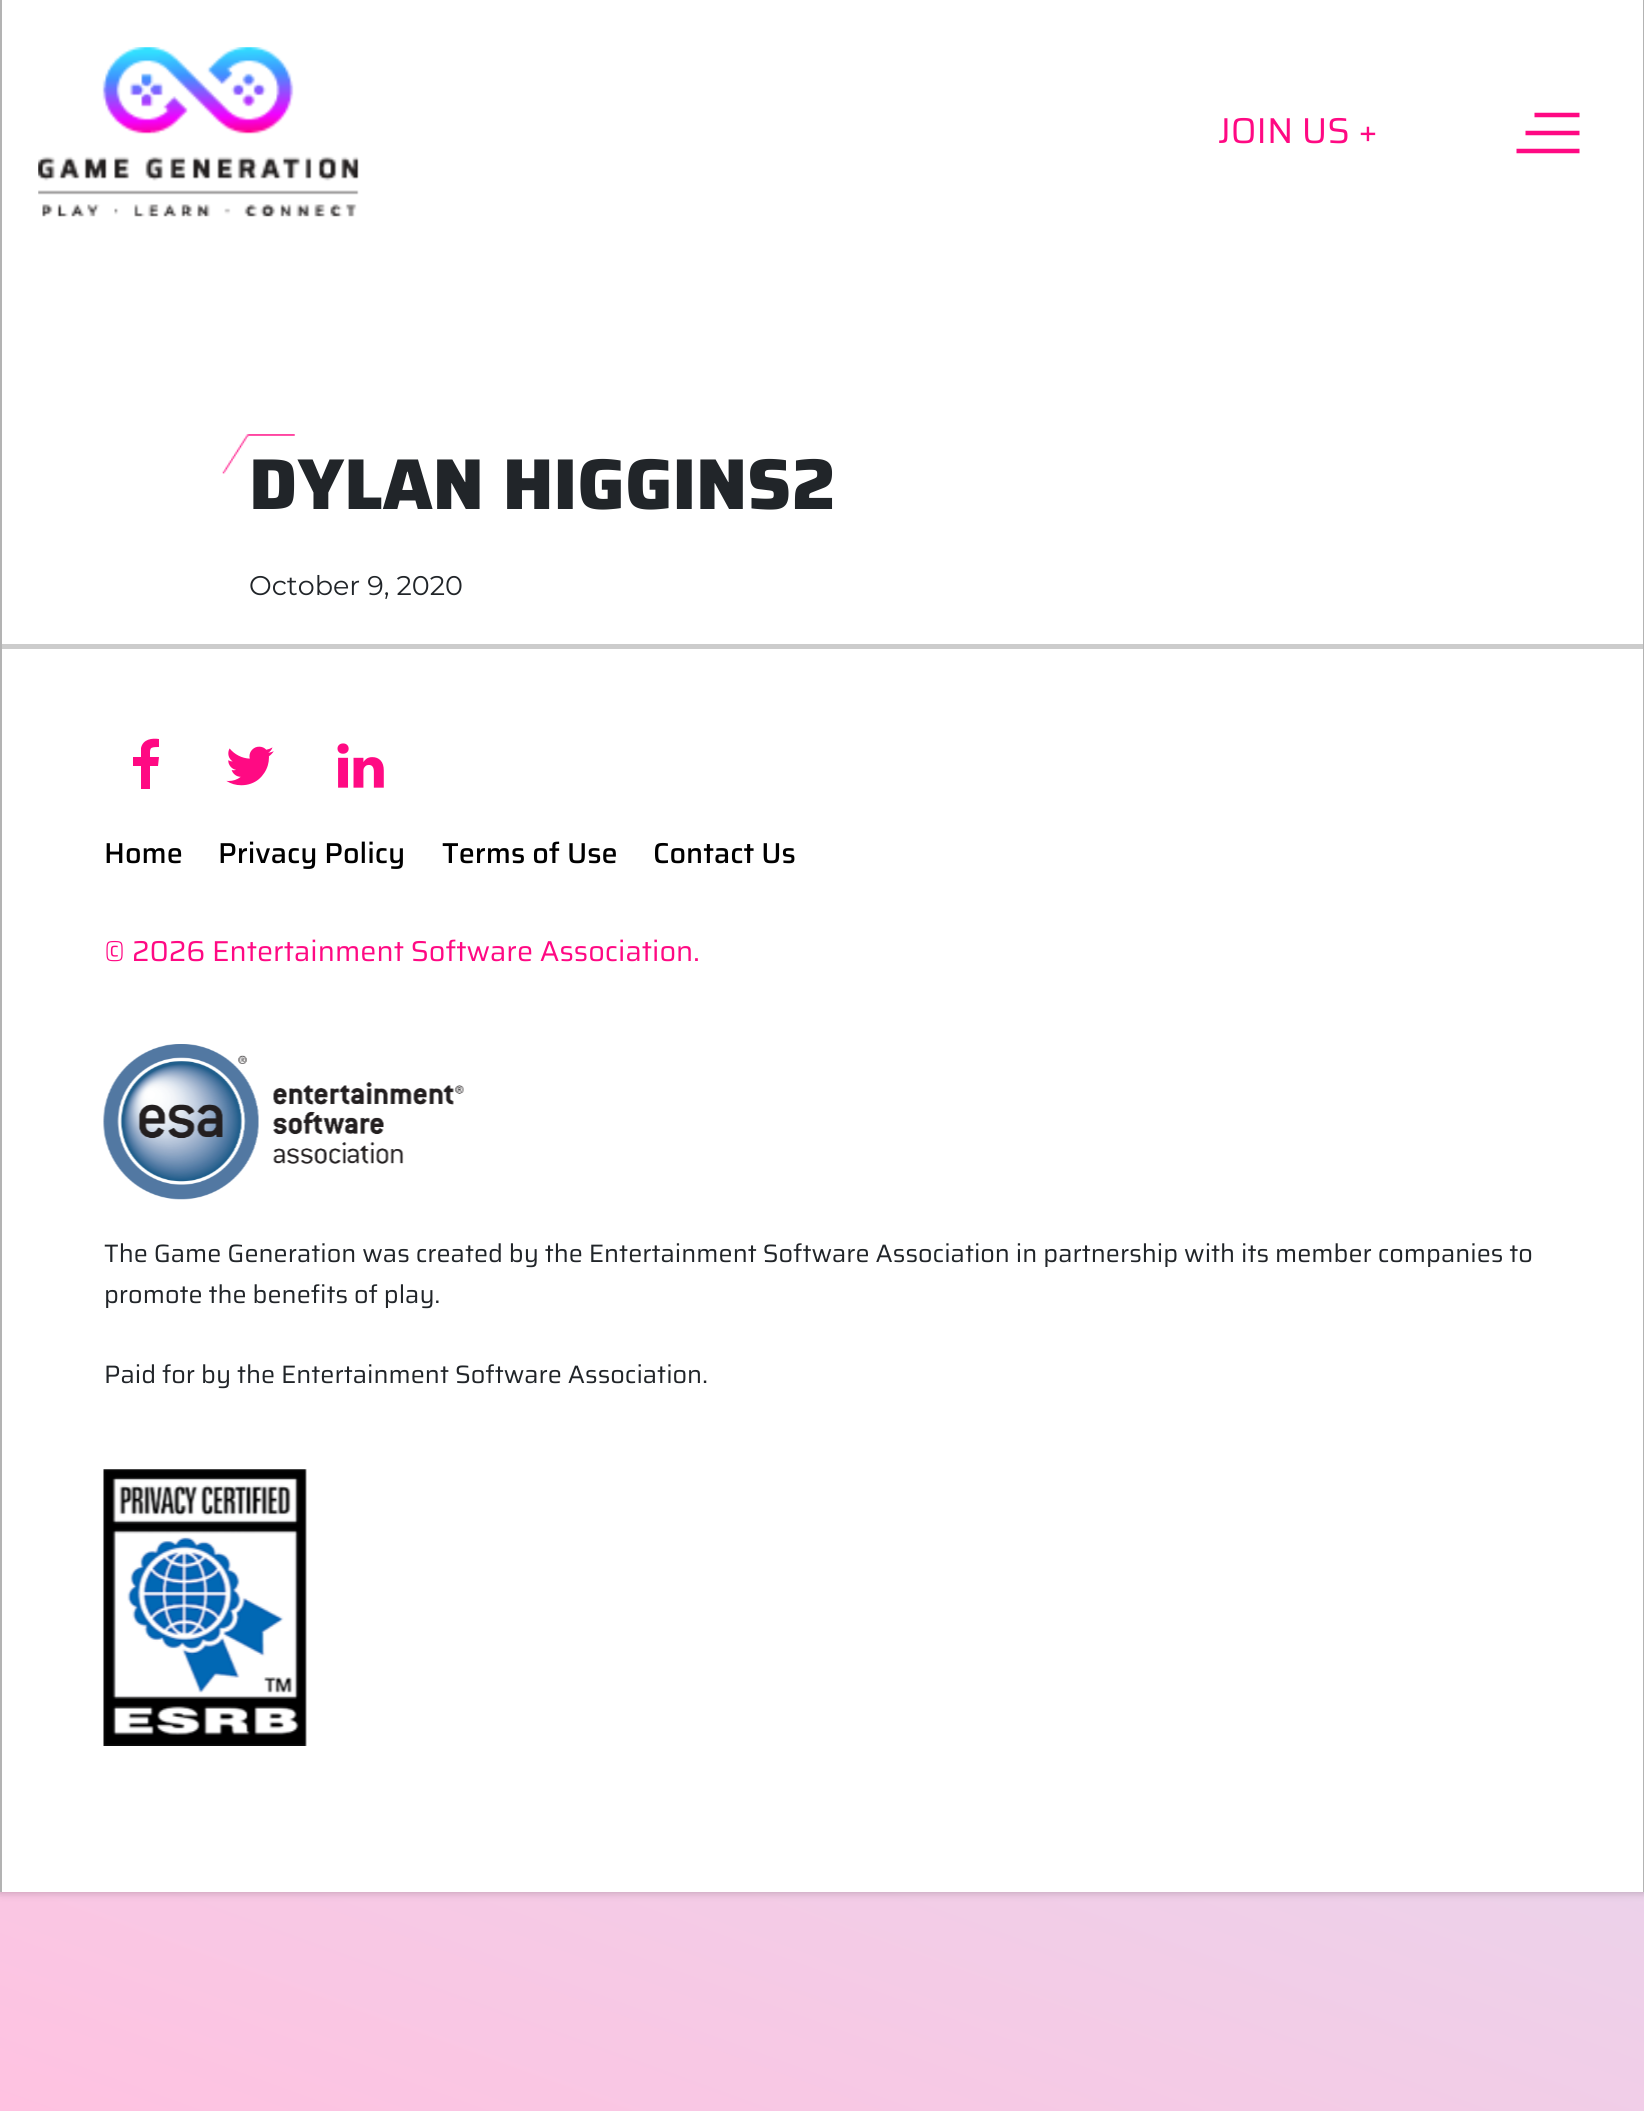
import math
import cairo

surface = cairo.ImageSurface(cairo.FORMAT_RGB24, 1644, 2111)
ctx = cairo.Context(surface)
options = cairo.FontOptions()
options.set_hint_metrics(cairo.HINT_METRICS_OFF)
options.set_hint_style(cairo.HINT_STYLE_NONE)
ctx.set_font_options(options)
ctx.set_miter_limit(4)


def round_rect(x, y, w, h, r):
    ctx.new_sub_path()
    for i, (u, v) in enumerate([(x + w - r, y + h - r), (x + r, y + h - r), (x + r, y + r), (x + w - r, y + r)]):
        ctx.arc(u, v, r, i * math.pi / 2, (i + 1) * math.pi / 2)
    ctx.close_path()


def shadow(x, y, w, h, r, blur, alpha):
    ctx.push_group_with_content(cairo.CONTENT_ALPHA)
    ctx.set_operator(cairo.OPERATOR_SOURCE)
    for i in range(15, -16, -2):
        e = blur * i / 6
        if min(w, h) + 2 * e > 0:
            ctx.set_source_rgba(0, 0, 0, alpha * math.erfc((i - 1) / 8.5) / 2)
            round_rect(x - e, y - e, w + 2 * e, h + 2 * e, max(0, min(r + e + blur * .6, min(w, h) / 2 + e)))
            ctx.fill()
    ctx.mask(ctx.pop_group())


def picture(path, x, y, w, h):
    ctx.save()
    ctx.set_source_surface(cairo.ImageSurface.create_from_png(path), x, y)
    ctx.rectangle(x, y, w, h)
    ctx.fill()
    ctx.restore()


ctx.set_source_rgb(1, 1, 1)
ctx.paint()
gradient = cairo.LinearGradient(387, 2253, 1258, -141)
gradient.add_color_stop_rgba(0, 1, 0.761, 0.882, 1)
gradient.add_color_stop_rgba(1, 0.753, 0.965, 1, 1)
ctx.set_source(gradient)
ctx.rectangle(0, 1892, 1644, 219)
ctx.fill()
ctx.set_source_rgb(0, 0, 0)
shadow(0, 0, 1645, 1892, 0, 4.5, 0.25)
ctx.set_source_rgb(1, 1, 1)
ctx.rectangle(2, 0, 1641, 1892)
ctx.fill()
ctx.set_source_rgb(0.702, 0.702, 0.702)
ctx.rectangle(1643, 0, 1, 1892)
ctx.fill()
ctx.rectangle(0, 0, 2, 1892)
ctx.fill()
picture("img1.png", 38, 47, 321, 170)
ctx.select_font_face("Saira")
ctx.set_font_size(36)
ctx.set_source_rgb(1, 0.039, 0.514)
ctx.move_to(1218, 143)
ctx.show_text("JOIN US +")
ctx.new_path()
ctx.move_to(1534.5, 115)
ctx.line_to(1579.5, 115)
ctx.move_to(1525.5, 133)
ctx.line_to(1579.5, 133)
ctx.set_line_width(4.5)
ctx.stroke()
ctx.new_path()
ctx.move_to(1516.5, 151)
ctx.line_to(1579.5, 151)
ctx.stroke()
ctx.select_font_face("Saira ExtraBold")
ctx.set_font_size(72)
ctx.set_source_rgb(0.129, 0.145, 0.161)
ctx.move_to(249, 509)
ctx.show_text("DYLAN HIGGINS2")
picture("img2.png", 222, 434, 73, 40)
ctx.select_font_face("Montserrat")
ctx.set_font_size(27)
ctx.move_to(249, 595)
ctx.show_text("October 9, 2020")
ctx.set_source_rgb(0.8, 0.8, 0.8)
ctx.rectangle(2, 644, 1641, 5)
ctx.fill()
ctx.set_source_rgb(1, 0.039, 0.514)
ctx.new_path()
ctx.move_to(159, 739)
ctx.line_to(159, 747)
ctx.curve_to(149, 747, 150, 748, 150, 757)
ctx.line_to(159, 757)
ctx.line_to(158, 766)
ctx.line_to(150, 766)
ctx.line_to(150, 789)
ctx.line_to(141, 789)
ctx.line_to(141, 766)
ctx.line_to(133, 766)
ctx.line_to(133, 757)
ctx.line_to(141, 757)
ctx.line_to(141, 748)
ctx.curve_to(143, 739, 152, 738, 159, 739)
ctx.close_path()
ctx.fill()
picture("img3.png", 226, 746, 48, 40)
picture("img4.png", 337, 743, 47, 45)
ctx.select_font_face("Saira Medium")
ctx.set_font_size(28.8)
ctx.set_source_rgb(0, 0, 0)
ctx.move_to(104, 863)
ctx.show_text("Home")
ctx.move_to(218, 863)
ctx.show_text("Privacy Policy")
ctx.move_to(442, 863)
ctx.show_text("Terms of Use")
ctx.move_to(653, 863)
ctx.show_text("Contact Us")
ctx.select_font_face("Saira")
ctx.set_source_rgb(1, 0.039, 0.514)
ctx.move_to(104, 961)
ctx.show_text("© 2026 Entertainment Software Association.")
picture("img5.png", 103, 1044, 361, 156)
ctx.set_font_size(25.2)
ctx.set_source_rgb(0.129, 0.145, 0.161)
ctx.move_to(104, 1262)
ctx.show_text("The Game Generation was created by the Entertainment Software Association in partnership with its member companies to")
ctx.move_to(104, 1303)
ctx.show_text("promote the benefits of play.")
ctx.move_to(104, 1383)
ctx.show_text("Paid for by the Entertainment Software Association.")
picture("img6.png", 103, 1469, 204, 277)
surface.write_to_png("page.png")
